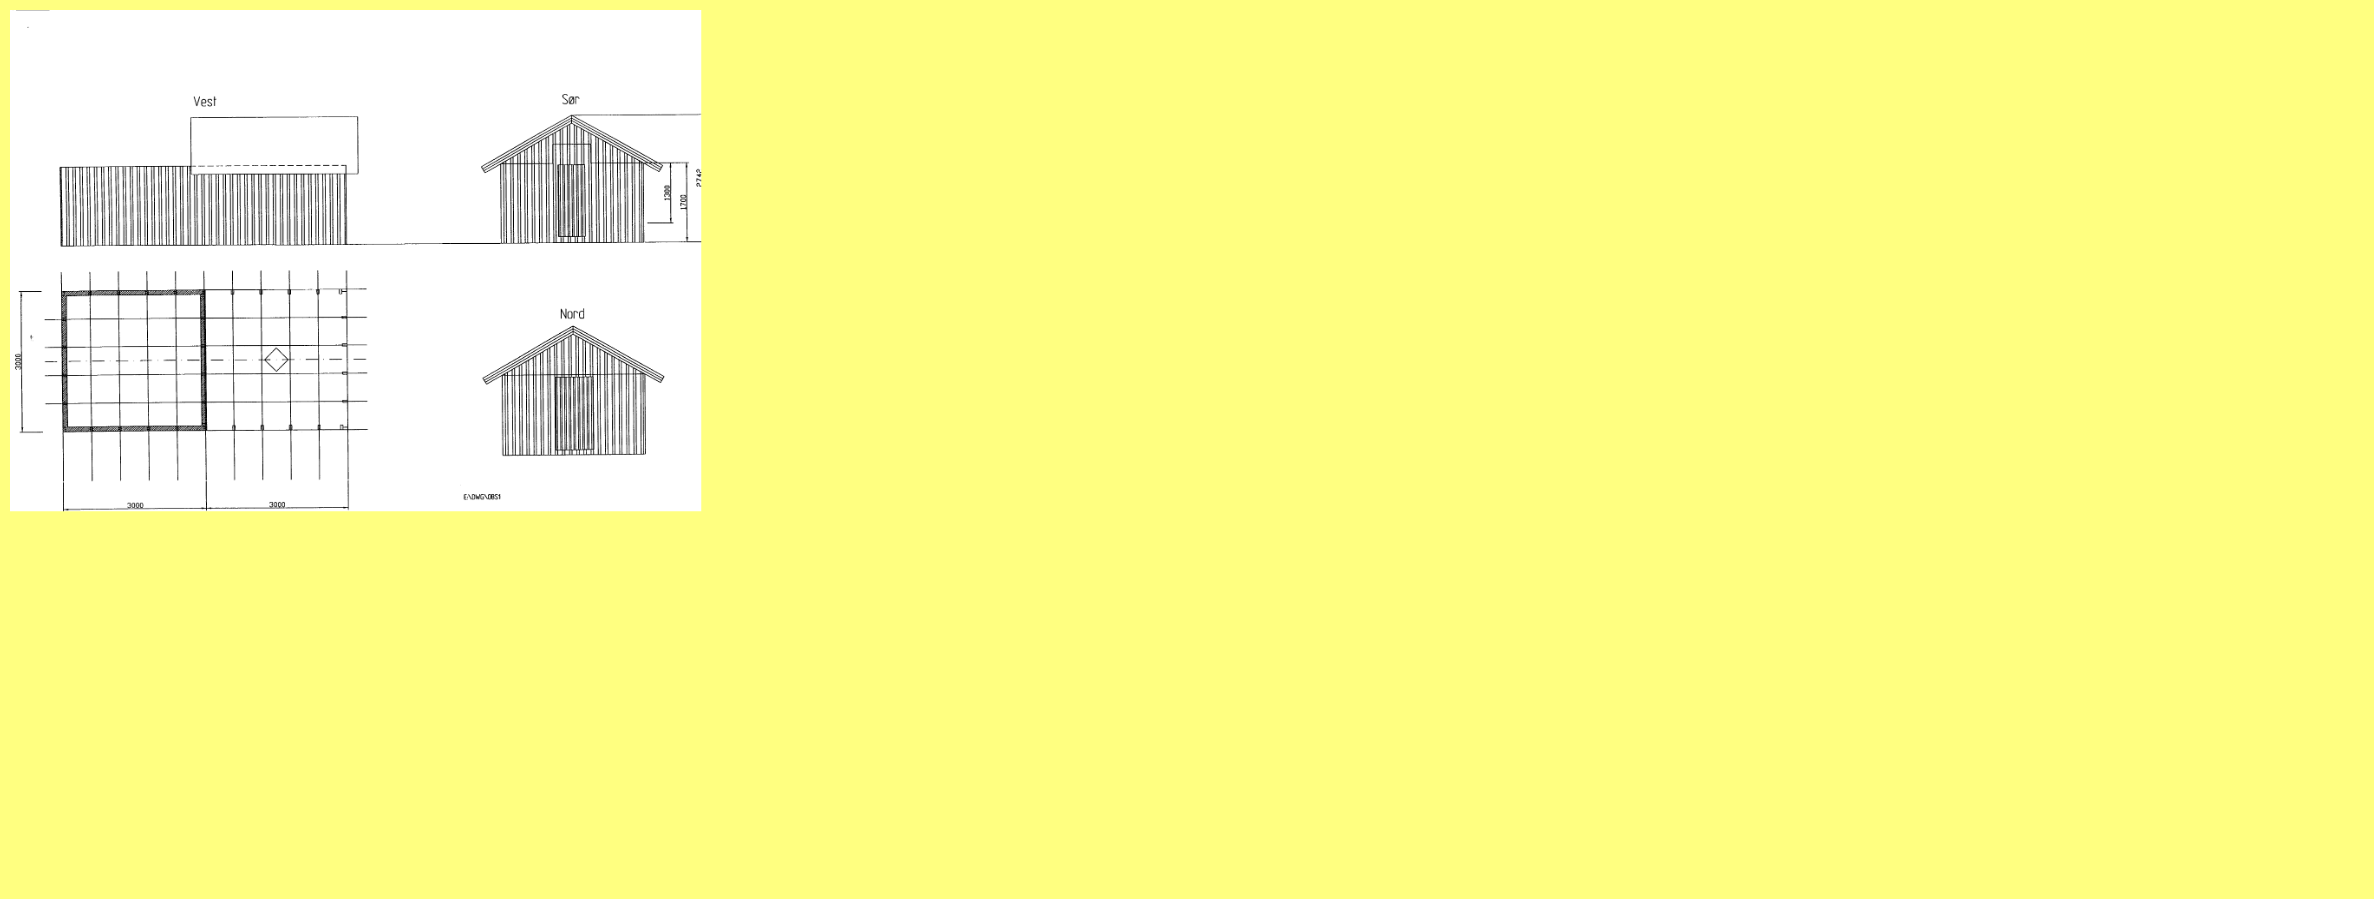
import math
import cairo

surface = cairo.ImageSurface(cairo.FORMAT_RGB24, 2374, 899)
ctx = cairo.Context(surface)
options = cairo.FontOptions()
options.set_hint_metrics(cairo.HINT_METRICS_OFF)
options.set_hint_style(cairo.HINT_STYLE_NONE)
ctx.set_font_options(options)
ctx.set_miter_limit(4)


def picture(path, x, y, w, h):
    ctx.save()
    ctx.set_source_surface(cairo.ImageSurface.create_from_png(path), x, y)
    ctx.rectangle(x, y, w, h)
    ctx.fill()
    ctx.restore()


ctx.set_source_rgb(1, 1, 0.502)
ctx.paint()
picture("img1.png", 10, 10, 692, 502)
surface.write_to_png("page.png")
